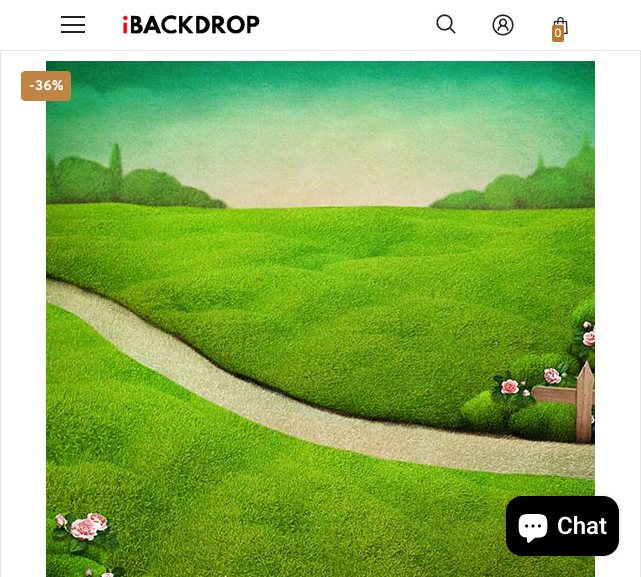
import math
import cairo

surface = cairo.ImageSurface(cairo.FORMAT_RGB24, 641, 577)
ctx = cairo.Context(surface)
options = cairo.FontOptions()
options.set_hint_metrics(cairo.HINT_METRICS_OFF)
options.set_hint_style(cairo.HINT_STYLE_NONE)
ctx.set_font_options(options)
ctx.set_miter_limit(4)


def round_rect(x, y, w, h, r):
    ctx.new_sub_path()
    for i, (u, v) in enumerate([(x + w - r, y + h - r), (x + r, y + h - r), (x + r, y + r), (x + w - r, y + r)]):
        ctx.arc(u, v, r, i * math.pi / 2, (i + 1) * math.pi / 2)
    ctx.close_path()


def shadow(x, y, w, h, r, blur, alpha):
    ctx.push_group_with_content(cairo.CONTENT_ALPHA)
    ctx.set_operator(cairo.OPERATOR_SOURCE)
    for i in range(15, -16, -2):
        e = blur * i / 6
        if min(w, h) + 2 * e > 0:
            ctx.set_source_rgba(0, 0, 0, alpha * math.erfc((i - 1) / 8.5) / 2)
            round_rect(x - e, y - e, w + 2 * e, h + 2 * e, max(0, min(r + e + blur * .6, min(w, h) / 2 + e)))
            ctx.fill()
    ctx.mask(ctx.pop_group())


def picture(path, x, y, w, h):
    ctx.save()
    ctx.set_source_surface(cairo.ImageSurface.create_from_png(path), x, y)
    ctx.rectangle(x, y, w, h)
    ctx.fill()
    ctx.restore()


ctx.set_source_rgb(1, 1, 1)
ctx.paint()
ctx.set_source_rgb(0.137, 0.137, 0.137)
ctx.rectangle(61, 16, 24, 2)
ctx.fill()
ctx.rectangle(61, 24, 24, 2)
ctx.fill()
ctx.rectangle(61, 31, 24, 2)
ctx.fill()
picture("img1.png", 123, 15, 137, 19)
picture("img2.png", 436, 14, 20, 20)
picture("img3.png", 492, 14, 22, 22)
picture("img4.png", 553, 17, 15, 17)
ctx.set_source_rgb(0.729, 0.478, 0.176)
round_rect(552, 25, 12, 17, 2)
ctx.fill()
ctx.select_font_face("Overpass Medium")
ctx.set_font_size(12)
ctx.set_source_rgb(1, 1, 1)
ctx.move_to(554, 37)
ctx.show_text("0")
ctx.rectangle(0.5, 50.5, 640, 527)
ctx.set_source_rgb(0.902, 0.902, 0.902)
ctx.set_line_width(1)
ctx.stroke()
picture("img5.png", 46, 61, 549, 516)
ctx.set_source_rgb(0.749, 0.522, 0.271)
round_rect(21, 71, 50, 30, 4)
ctx.fill()
ctx.select_font_face("Overpass", cairo.FONT_SLANT_NORMAL, cairo.FONT_WEIGHT_BOLD)
ctx.set_font_size(14)
ctx.set_source_rgb(1, 1, 1)
ctx.move_to(29, 90)
ctx.show_text("-36%")
ctx.set_source_rgb(0, 0, 0)
shadow(506, 496, 113, 60, 16, 2.5, 0.15)
ctx.set_source_rgb(0, 0, 0)
round_rect(506, 496, 113, 60, 16)
ctx.fill()
picture("img6.png", 518, 514, 30, 29)
ctx.select_font_face("Roboto SemiBold")
ctx.set_font_size(24)
ctx.set_source_rgb(1, 1, 1)
ctx.move_to(557, 534)
ctx.show_text("Chat")
surface.write_to_png("page.png")
